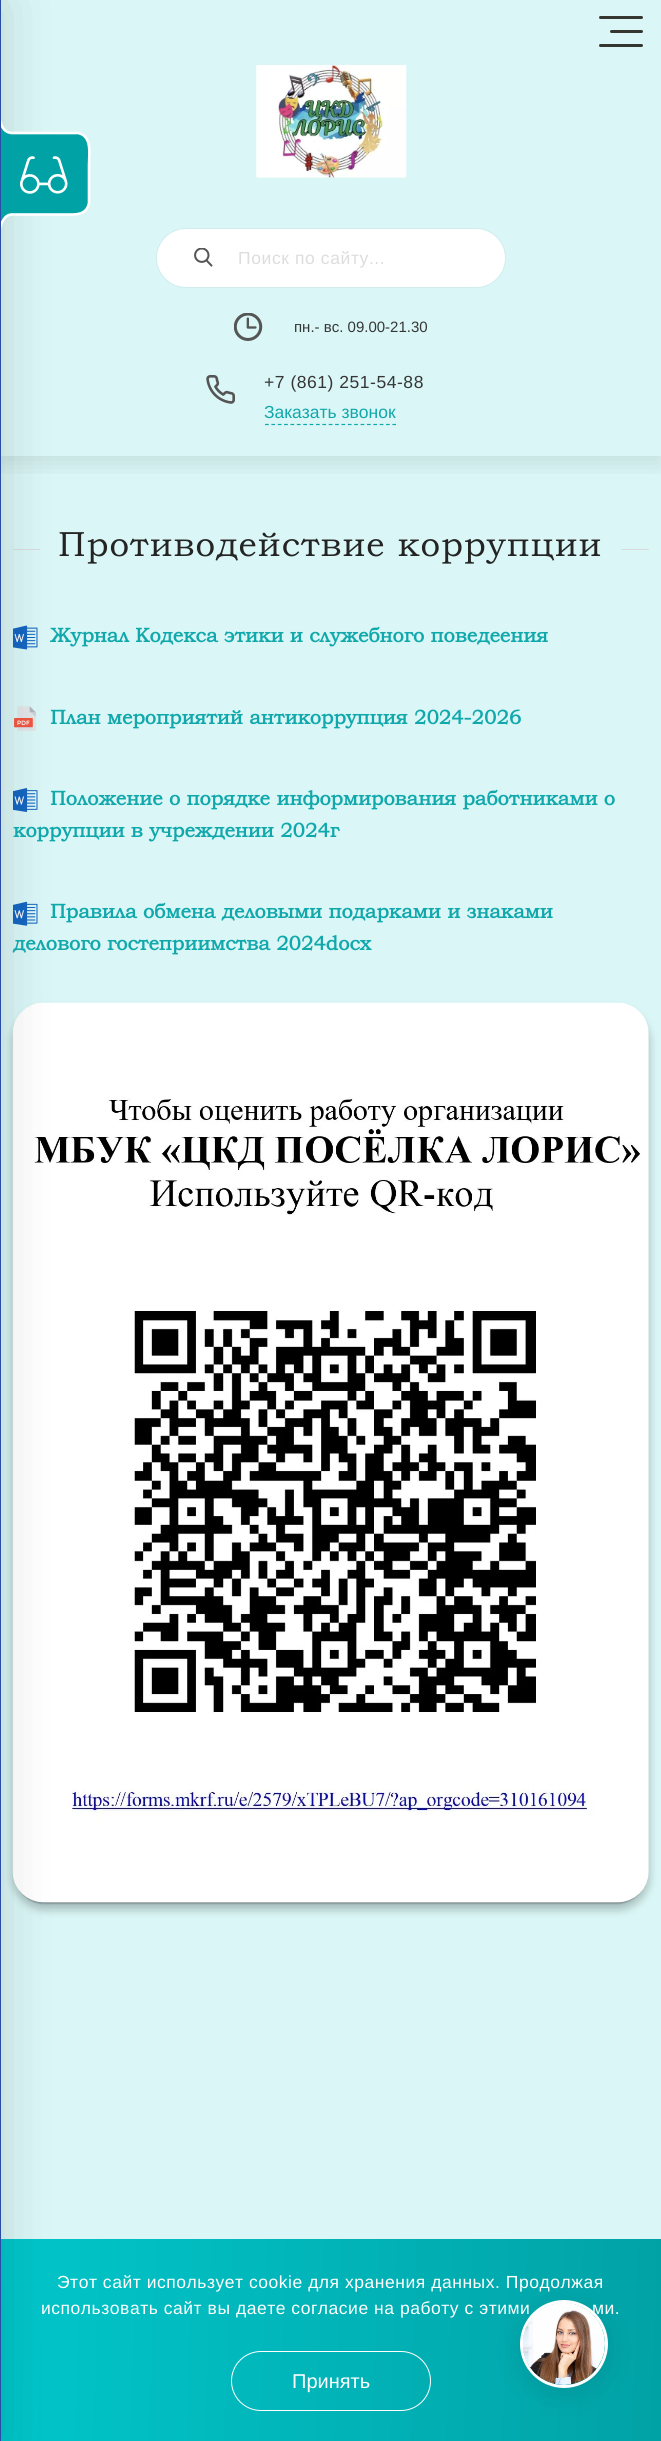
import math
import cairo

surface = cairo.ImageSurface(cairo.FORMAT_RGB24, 661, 2441)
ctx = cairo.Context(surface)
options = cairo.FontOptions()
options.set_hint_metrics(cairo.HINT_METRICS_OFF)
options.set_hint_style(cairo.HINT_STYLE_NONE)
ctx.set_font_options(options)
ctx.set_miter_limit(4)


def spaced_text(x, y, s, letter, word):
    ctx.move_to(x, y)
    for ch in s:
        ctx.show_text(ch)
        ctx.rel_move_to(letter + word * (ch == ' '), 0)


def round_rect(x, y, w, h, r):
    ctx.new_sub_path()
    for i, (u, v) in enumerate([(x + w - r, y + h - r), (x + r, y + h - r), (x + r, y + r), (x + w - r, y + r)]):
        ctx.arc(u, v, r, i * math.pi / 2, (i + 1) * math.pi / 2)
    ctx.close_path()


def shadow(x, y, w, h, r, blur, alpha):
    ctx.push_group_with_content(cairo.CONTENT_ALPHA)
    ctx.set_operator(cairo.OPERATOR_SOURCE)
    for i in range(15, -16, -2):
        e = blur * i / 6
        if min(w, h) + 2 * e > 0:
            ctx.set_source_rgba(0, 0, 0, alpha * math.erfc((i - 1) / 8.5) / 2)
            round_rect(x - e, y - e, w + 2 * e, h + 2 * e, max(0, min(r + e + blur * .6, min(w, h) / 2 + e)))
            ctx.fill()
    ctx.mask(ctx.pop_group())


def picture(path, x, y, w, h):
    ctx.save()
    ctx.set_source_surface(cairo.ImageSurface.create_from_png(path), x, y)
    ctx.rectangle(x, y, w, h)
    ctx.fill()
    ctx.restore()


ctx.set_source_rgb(0.855, 0.961, 0.961)
ctx.paint()
ctx.set_source_rgb(0.859, 0.859, 0.859)
ctx.rectangle(13, 549, 636, 1)
ctx.fill()
ctx.set_source_rgb(0.855, 0.961, 0.961)
ctx.rectangle(40, 549, 581, 1)
ctx.fill()
picture("img6.png", 13, 625, 25, 25)
picture("img7.png", 14, 706, 22, 25)
picture("img8.png", 13, 788, 25, 24)
picture("img9.png", 13, 901, 25, 25)
ctx.set_source_rgb(0, 0, 0)
shadow(13, 1009, 636, 900, 31, 5.5, 0.12)
shadow(13, 1010, 636, 900, 31, 4, 0.14)
shadow(15, 1009, 631, 895, 29, 0.5, 0.2)
picture("img10.png", 12, 1002, 637, 901)
gradient = cairo.LinearGradient(-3.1, 2328, 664, 2352)
gradient.add_color_stop_rgba(0, 0.004, 0.776, 0.792, 1)
gradient.add_color_stop_rgba(1, 0.004, 0.635, 0.651, 1)
ctx.set_source(gradient)
ctx.rectangle(1, 2239, 660, 202)
ctx.fill()
ctx.set_source_rgb(0, 0, 0)
shadow(-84, 3, 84, 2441, 0, 28, 0.15)
ctx.save()
ctx.rectangle(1, 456, 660, 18)
ctx.clip()
shadow(0, 6, 661, 457, 0, 12.5, 0.1)
ctx.restore()
ctx.set_source_rgb(0.161, 0.298, 0.647)
ctx.rectangle(0, 0, 1, 2441)
ctx.fill()
ctx.set_source_rgb(0.004, 0.635, 0.651)
ctx.new_path()
ctx.move_to(11, 133)
ctx.line_to(78, 133)
ctx.curve_to(93, 136, 89, 154, 89, 165)
ctx.line_to(89, 203)
ctx.curve_to(86, 216, 74, 215, 64, 215)
ctx.line_to(11, 215)
ctx.curve_to(3, 215, 1, 227, -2, 233)
ctx.line_to(-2, 116)
ctx.curve_to(1, 124, 2, 132, 11, 133)
ctx.close_path()
ctx.fill()
ctx.new_path()
ctx.move_to(11.5, 133)
ctx.line_to(78, 133)
ctx.curve_to(92.5, 136, 89, 154, 89, 165)
ctx.line_to(89, 203)
ctx.curve_to(86.5, 216, 74.5, 214.5, 64.5, 214.5)
ctx.line_to(11.5, 214.5)
ctx.curve_to(2.5, 215, 0.5, 227, -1.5, 233)
ctx.line_to(-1.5, 116)
ctx.curve_to(1, 123.5, 2, 132, 11.5, 133)
ctx.close_path()
ctx.set_source_rgb(1, 1, 1)
ctx.set_line_width(2.6)
ctx.stroke()
ctx.set_source_rgb(0.161, 0.298, 0.647)
ctx.rectangle(0, 109, 1, 132)
ctx.fill()
picture("img1.png", 20, 156, 48, 38)
ctx.set_source_rgb(0.212, 0.212, 0.188)
round_rect(599, 16, 44, 3, 1.5)
ctx.fill()
round_rect(610, 30, 33, 3, 1.5)
ctx.fill()
round_rect(599, 44, 44, 3, 1.5)
ctx.fill()
picture("img2.png", 256, 65, 151, 113)
ctx.set_source_rgb(1, 1, 1)
round_rect(156, 228, 350, 60, 30)
ctx.fill()
round_rect(156.5, 228.5, 349, 59, 29.5)
ctx.set_source_rgba(0.004, 0.635, 0.651, 0.19)
ctx.set_line_width(1)
ctx.stroke()
picture("img3.png", 194, 248, 19, 19)
ctx.select_font_face("Liberation Sans")
ctx.set_font_size(17.5)
ctx.set_source_rgb(0.867, 0.867, 0.867)
spaced_text(238, 264, "Поиск по сайту...", 0.6, 0)
picture("img4.png", 234, 313, 29, 28)
ctx.set_font_size(15)
ctx.set_source_rgb(0.212, 0.212, 0.212)
ctx.move_to(294, 332)
ctx.show_text("пн.- вс. 09.00-21.30")
picture("img5.png", 206, 375, 29, 29)
ctx.set_font_size(17.5)
spaced_text(264, 388, "+7 (861) 251-54-88", 0.53, 0)
ctx.set_source_rgb(0.067, 0.659, 0.675)
ctx.move_to(264, 418)
ctx.show_text("Заказать звонок")
ctx.new_path()
ctx.move_to(265, 424.5)
ctx.line_to(396, 424.5)
ctx.set_line_width(1.2)
ctx.set_dash([3.75, 2.62])
ctx.stroke()
ctx.select_font_face("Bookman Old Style")
ctx.set_font_size(35)
ctx.set_source_rgb(0.141, 0.141, 0.141)
spaced_text(58, 556, "Противодействие коррупции", 1.05, 0)
ctx.select_font_face("Bookman Old Style", cairo.FONT_SLANT_NORMAL, cairo.FONT_WEIGHT_BOLD)
ctx.set_font_size(20)
ctx.set_source_rgb(0.067, 0.659, 0.675)
ctx.move_to(50, 642)
ctx.show_text("Журнал Кодекса этики и служебного поведеения")
ctx.move_to(50, 724)
ctx.show_text("План мероприятий антикоррупция 2024-2026")
ctx.move_to(50, 805)
ctx.show_text("Положение о порядке информирования работниками о")
ctx.move_to(13, 837)
ctx.show_text("коррупции в учреждении 2024г")
ctx.move_to(50, 918)
ctx.show_text("Правила обмена деловыми подарками и знаками")
ctx.move_to(13, 950)
ctx.show_text("делового гостеприимства 2024docx")
ctx.select_font_face("Liberation Sans")
ctx.set_font_size(17.5)
ctx.set_source_rgb(1, 1, 1)
spaced_text(57, 2288, "Этот сайт использует cookie для хранения данных. Продолжая", 0.53, 0)
spaced_text(41, 2314, "использовать сайт вы даете согласие на работу с этими", 0.53, 0)
spaced_text(592, 2314, "ми.", 0.53, 0)
round_rect(231.5, 2351.5, 199, 59, 29.5)
ctx.set_line_width(1)
ctx.set_dash([])
ctx.stroke()
ctx.set_font_size(20)
ctx.move_to(292, 2388)
ctx.show_text("Принять")
ctx.set_source_rgb(0, 0, 0)
shadow(520, 2306, 88, 88, 44, 12.5, 0.1)
ctx.arc(564, 2344, 42.5, 0, 2 * math.pi)
ctx.set_source_rgb(1, 1, 1)
ctx.set_line_width(3)
ctx.stroke()
picture("img11.png", 522, 2303, 83, 82)
surface.write_to_png("page.png")
